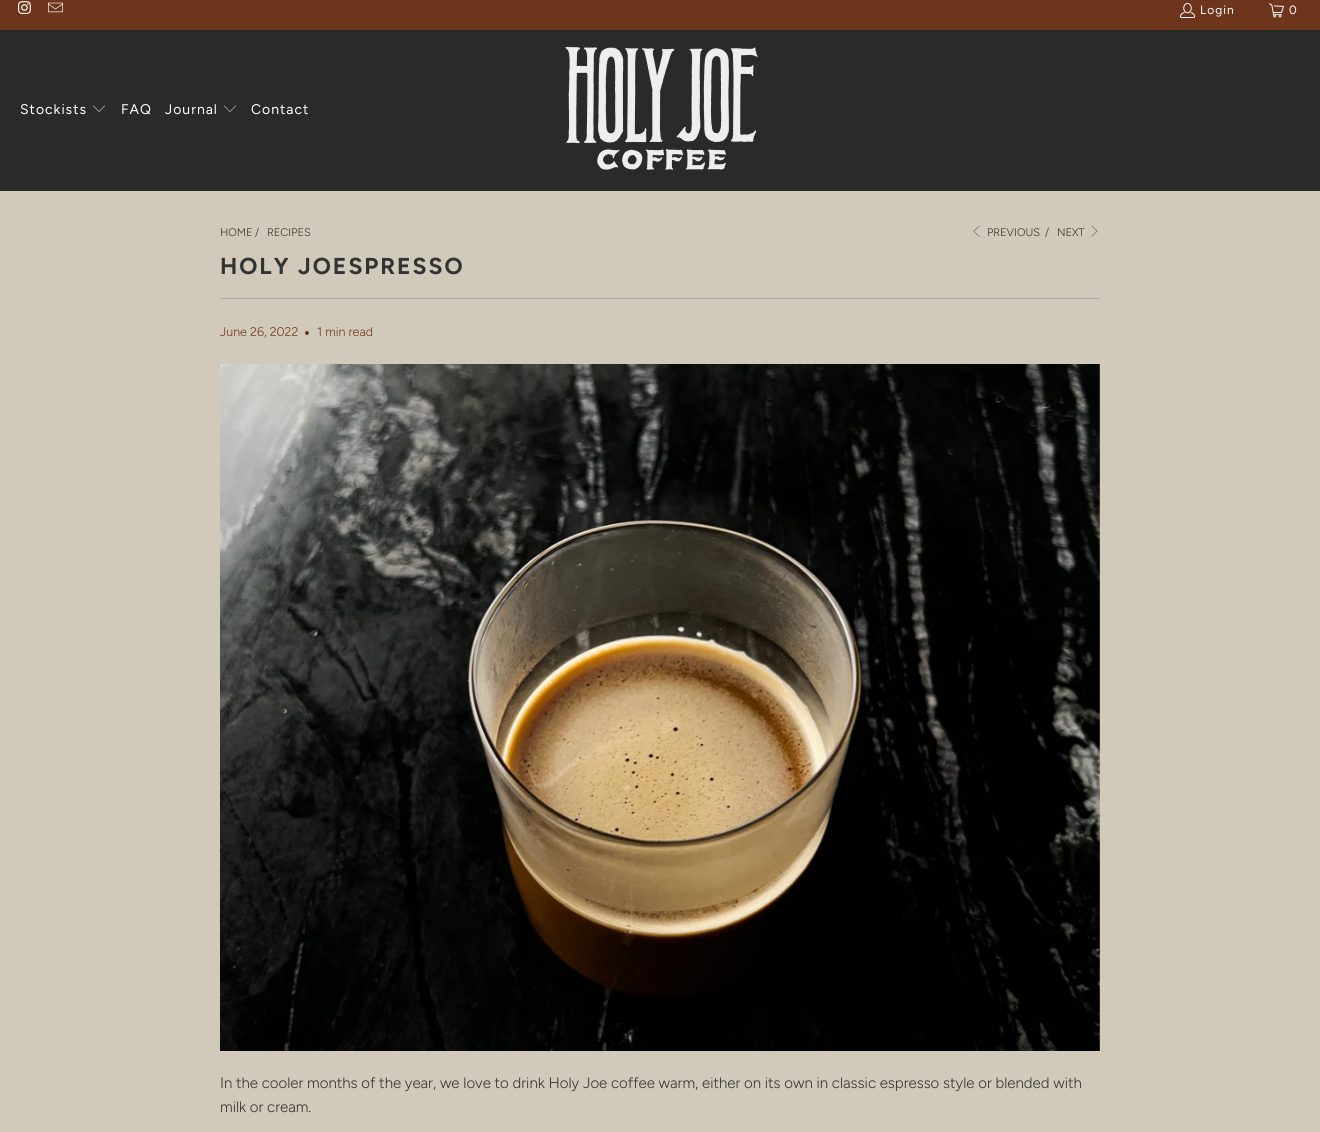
import math
import cairo

surface = cairo.ImageSurface(cairo.FORMAT_RGB24, 1320, 1132)
ctx = cairo.Context(surface)
options = cairo.FontOptions()
options.set_hint_metrics(cairo.HINT_METRICS_OFF)
options.set_hint_style(cairo.HINT_STYLE_NONE)
ctx.set_font_options(options)
ctx.set_miter_limit(4)


def spaced_text(x, y, s, letter, word):
    ctx.move_to(x, y)
    for ch in s:
        ctx.show_text(ch)
        ctx.rel_move_to(letter + word * (ch == ' '), 0)


def picture(path, x, y, w, h):
    ctx.save()
    ctx.set_source_surface(cairo.ImageSurface.create_from_png(path), x, y)
    ctx.rectangle(x, y, w, h)
    ctx.fill()
    ctx.restore()


ctx.set_source_rgb(0.82, 0.792, 0.729)
ctx.paint()
ctx.set_source_rgb(0.431, 0.208, 0.114)
ctx.rectangle(0, 0, 1320, 30)
ctx.fill()
picture("img1.png", 18, 1, 13, 13)
picture("img2.png", 48, 2, 15, 11)
picture("img3.png", 1180, 2, 15, 16)
ctx.select_font_face("Figtree")
ctx.set_font_size(12)
ctx.set_source_rgb(1, 1, 1)
spaced_text(1200, 14, "Login", 1, 0)
picture("img4.png", 1269, 3, 15, 15)
spaced_text(1289, 14, "0", 1, 0)
ctx.set_source_rgb(0.165, 0.165, 0.161)
ctx.rectangle(0, 30, 1320, 161)
ctx.fill()
ctx.set_font_size(14)
ctx.set_source_rgb(1, 1, 1)
spaced_text(20, 114, "Stockists", 1, 0)
picture("img5.png", 93, 105, 12, 7)
spaced_text(121, 114, "FAQ", 1, 0)
spaced_text(165, 114, "Journal", 1, 0)
picture("img5.png", 224, 105, 12, 7)
spaced_text(251, 114, "Contact", 1, 0)
picture("img6.png", 565, 46, 193, 124)
ctx.select_font_face("Figtree Light")
ctx.set_font_size(11)
ctx.set_source_rgb(0.2, 0.2, 0.2)
ctx.move_to(220, 236)
ctx.show_text("HOME")
ctx.move_to(255, 236)
ctx.show_text("/")
ctx.move_to(267, 236)
ctx.show_text("RECIPES")
picture("img7.png", 973, 225, 7, 12)
ctx.move_to(987, 236)
ctx.show_text("PREVIOUS")
ctx.move_to(1045, 236)
ctx.show_text("/")
ctx.move_to(1057, 236)
ctx.show_text("NEXT")
picture("img8.png", 1091, 225, 7, 12)
ctx.select_font_face("Figtree", cairo.FONT_SLANT_NORMAL, cairo.FONT_WEIGHT_BOLD)
ctx.set_font_size(23)
spaced_text(220, 274, "HOLY JOESPRESSO", 2, 0)
ctx.set_source_rgb(0.667, 0.667, 0.667)
ctx.rectangle(220, 298, 880, 1)
ctx.fill()
ctx.select_font_face("Figtree Light")
ctx.set_font_size(12.5)
ctx.set_source_rgb(0.431, 0.208, 0.114)
ctx.move_to(220, 336)
ctx.show_text("June 26, 2022")
ctx.new_path()
ctx.arc(307, 333, 2, 0, 2 * math.pi)
ctx.fill()
ctx.move_to(317, 336)
ctx.show_text("1 min read")
picture("img9.png", 220, 364, 880, 687)
ctx.set_font_size(15)
ctx.set_source_rgb(0.2, 0.2, 0.2)
ctx.move_to(220, 1088)
ctx.show_text("In the cooler months of the year, we love to drink Holy Joe coffee warm, either on its own in classic espresso style or blended with")
ctx.move_to(220, 1112)
ctx.show_text("milk or cream.")
surface.write_to_png("page.png")
